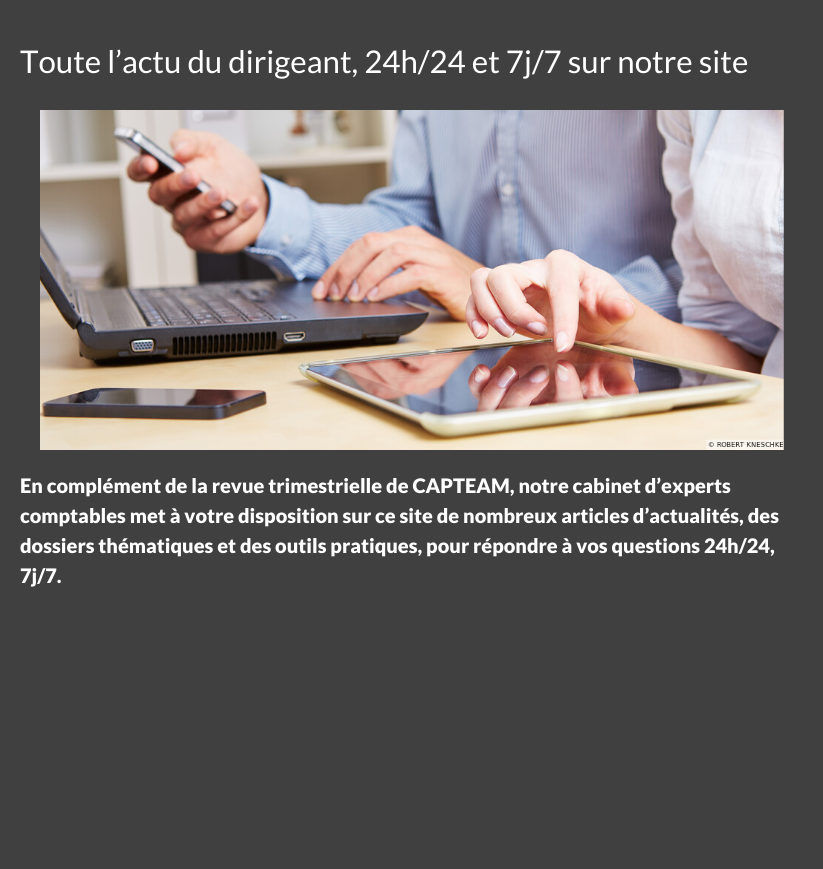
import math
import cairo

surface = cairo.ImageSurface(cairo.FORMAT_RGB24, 823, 869)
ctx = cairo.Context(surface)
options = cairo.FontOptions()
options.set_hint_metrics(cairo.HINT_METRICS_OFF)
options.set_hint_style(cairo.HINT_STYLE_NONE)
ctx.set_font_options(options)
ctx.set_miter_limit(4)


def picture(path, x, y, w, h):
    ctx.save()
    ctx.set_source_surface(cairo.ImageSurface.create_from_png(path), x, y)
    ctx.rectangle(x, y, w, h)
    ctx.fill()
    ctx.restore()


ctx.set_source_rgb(0.251, 0.251, 0.251)
ctx.paint()
ctx.select_font_face("Lato")
ctx.set_font_size(31.25)
ctx.set_source_rgb(1, 1, 1)
ctx.move_to(20, 73)
ctx.show_text("Toute l’actu du dirigeant, 24h/24 et 7j/7 sur notre site")
picture("img1.png", 40, 110, 744, 340)
ctx.select_font_face("Lato Black")
ctx.set_font_size(20)
ctx.move_to(20, 493)
ctx.show_text("En complément de la revue trimestrielle de CAPTEAM, notre cabinet d’experts")
ctx.move_to(20, 523)
ctx.show_text("comptables met à votre disposition sur ce site de nombreux articles d’actualités, des")
ctx.move_to(20, 553)
ctx.show_text("dossiers thématiques et des outils pratiques, pour répondre à vos questions 24h/24,")
ctx.move_to(20, 583)
ctx.show_text("7j/7.")
surface.write_to_png("page.png")
